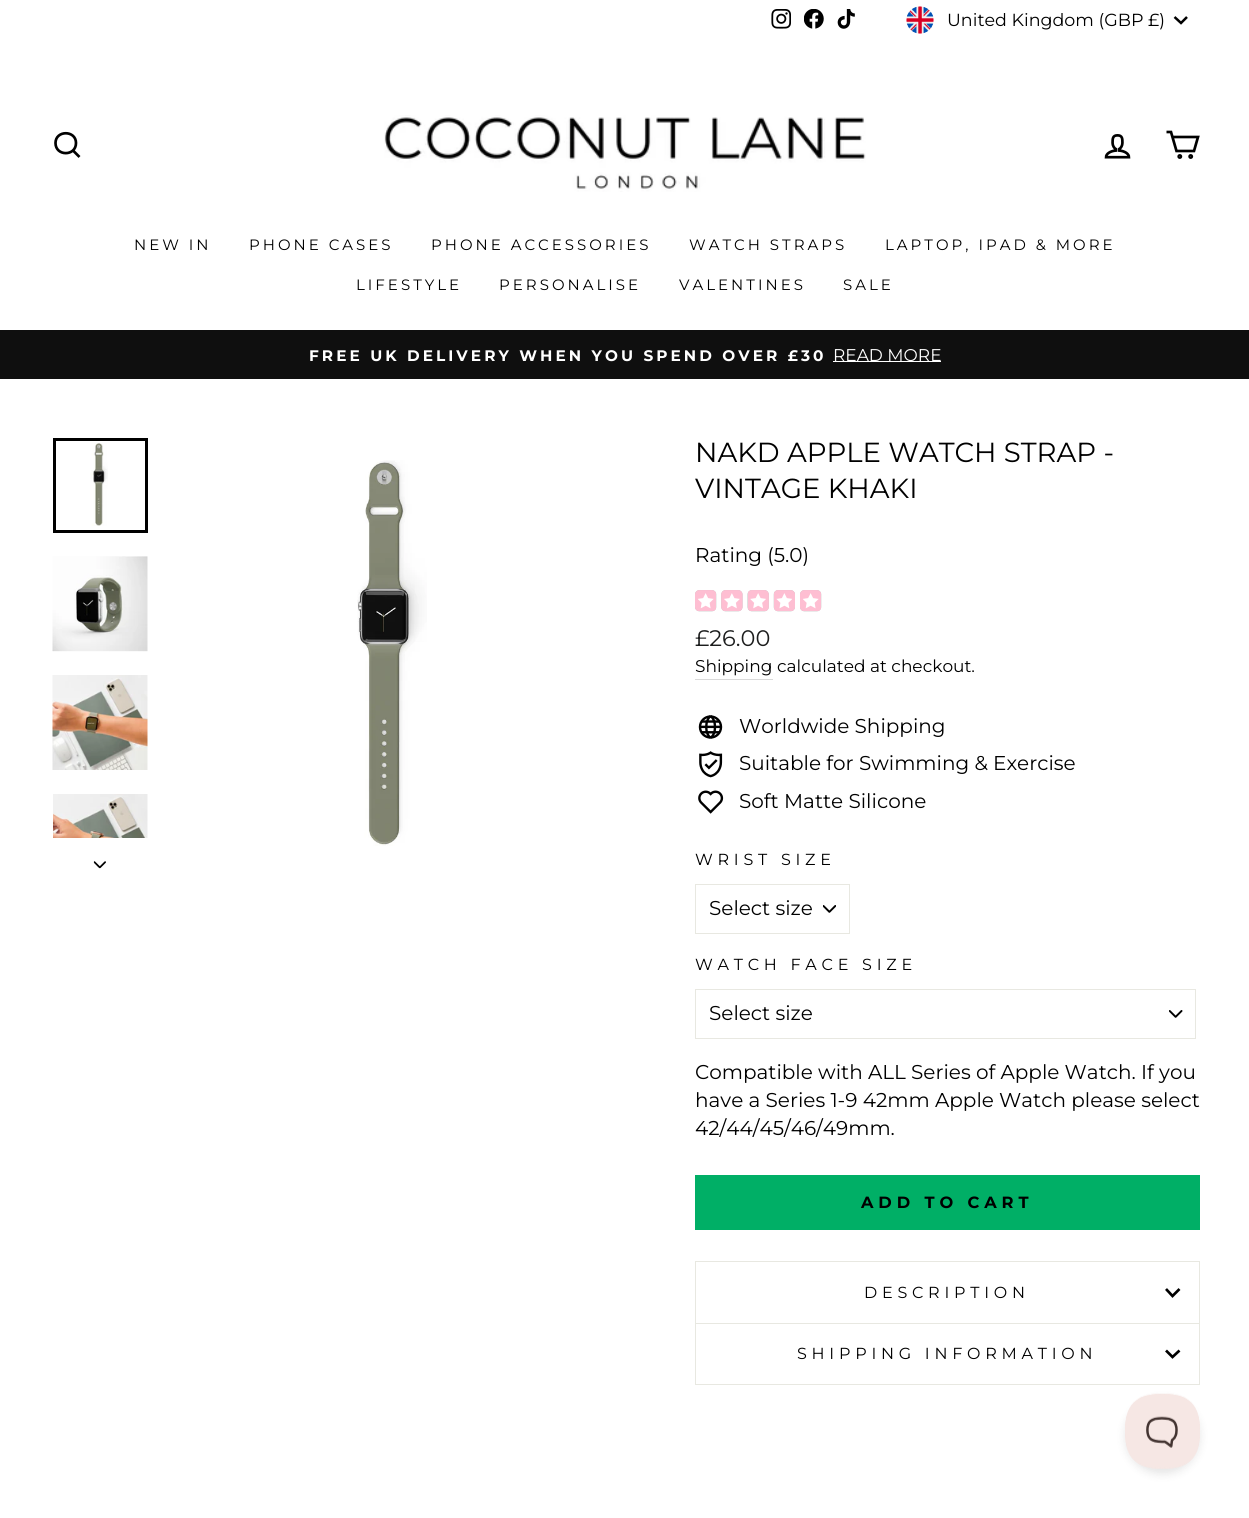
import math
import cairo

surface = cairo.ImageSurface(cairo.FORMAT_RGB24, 1249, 1518)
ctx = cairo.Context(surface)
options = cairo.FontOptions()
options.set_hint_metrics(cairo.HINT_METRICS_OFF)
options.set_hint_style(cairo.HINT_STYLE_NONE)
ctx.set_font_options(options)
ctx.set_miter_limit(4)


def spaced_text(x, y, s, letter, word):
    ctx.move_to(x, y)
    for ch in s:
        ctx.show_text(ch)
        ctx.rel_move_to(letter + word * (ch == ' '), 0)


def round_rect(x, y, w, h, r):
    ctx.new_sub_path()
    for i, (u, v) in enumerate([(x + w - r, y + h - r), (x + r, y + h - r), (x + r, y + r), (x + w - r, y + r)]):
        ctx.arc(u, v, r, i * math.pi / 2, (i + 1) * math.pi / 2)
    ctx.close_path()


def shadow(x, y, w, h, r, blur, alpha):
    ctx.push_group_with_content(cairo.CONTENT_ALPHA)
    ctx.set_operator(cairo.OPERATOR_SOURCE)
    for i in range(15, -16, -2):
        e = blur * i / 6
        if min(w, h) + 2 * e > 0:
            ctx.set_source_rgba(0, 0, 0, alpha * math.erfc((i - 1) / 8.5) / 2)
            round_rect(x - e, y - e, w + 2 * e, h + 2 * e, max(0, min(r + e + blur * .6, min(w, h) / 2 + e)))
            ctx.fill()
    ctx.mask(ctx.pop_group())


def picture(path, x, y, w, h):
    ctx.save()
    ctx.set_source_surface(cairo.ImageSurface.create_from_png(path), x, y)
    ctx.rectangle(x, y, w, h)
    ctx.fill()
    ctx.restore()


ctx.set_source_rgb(1, 1, 1)
ctx.paint()
picture("img1.png", 771, 9, 20, 20)
picture("img2.png", 804, 9, 20, 20)
picture("img3.png", 837, 9, 18, 20)
picture("img4.png", 906, 6, 28, 28)
ctx.select_font_face("Montserrat Thin")
ctx.set_font_size(17.5)
ctx.set_source_rgb(0, 0, 0)
ctx.move_to(947, 26)
ctx.show_text("United Kingdom (GBP £)")
ctx.new_path()
ctx.move_to(1174.5, 17)
ctx.line_to(1181, 23)
ctx.line_to(1187, 17)
ctx.set_line_width(2.5)
ctx.stroke()
ctx.new_path()
ctx.move_to(76, 143)
ctx.curve_to(76, 156.5, 55.5, 156.5, 55.5, 143)
ctx.curve_to(55.5, 130, 76, 130, 76, 143)
ctx.close_path()
ctx.move_to(79.5, 157)
ctx.line_to(73, 150.5)
ctx.set_line_width(2.7)
ctx.stroke()
picture("img5.png", 384, 115, 482, 77)
picture("img6.png", 1104, 134, 27, 25)
ctx.new_path()
ctx.move_to(1172.5, 137)
ctx.line_to(1198, 137)
ctx.line_to(1194, 151)
ctx.line_to(1176.5, 151)
ctx.line_to(1171, 132)
ctx.line_to(1166.5, 132)
ctx.stroke()
ctx.arc(1179.8, 156.5, 1.1, 0, 2 * math.pi)
ctx.stroke()
ctx.arc(1190.7, 156.5, 1.1, 0, 2 * math.pi)
ctx.stroke()
ctx.set_font_size(15)
spaced_text(134, 250, "NEW IN", 3, 0)
spaced_text(249, 250, "PHONE CASES", 3, 0)
spaced_text(431, 250, "PHONE ACCESSORIES", 3, 0)
spaced_text(689, 250, "WATCH STRAPS", 3, 0)
spaced_text(885, 250, "LAPTOP, IPAD & MORE", 3, 0)
spaced_text(356, 290, "LIFESTYLE", 3, 0)
spaced_text(499, 290, "PERSONALISE", 3, 0)
spaced_text(679, 290, "VALENTINES", 3, 0)
spaced_text(843, 290, "SALE", 3, 0)
ctx.set_source_rgb(0.059, 0.059, 0.059)
ctx.rectangle(0, 330, 1249, 49)
ctx.fill()
ctx.select_font_face("Montserrat", cairo.FONT_SLANT_NORMAL, cairo.FONT_WEIGHT_BOLD)
ctx.set_font_size(15.3)
ctx.set_source_rgb(1, 1, 1)
spaced_text(309, 361, "FREE UK DELIVERY WHEN YOU SPEND OVER £30", 3.05, 0)
ctx.rectangle(833, 361, 108, 1)
ctx.fill()
ctx.select_font_face("Montserrat Thin")
ctx.set_font_size(17)
ctx.move_to(833, 361)
ctx.show_text("READ MORE")
picture("img7.png", 90, 443, 18, 83)
ctx.rectangle(54.5, 439.5, 92, 92)
ctx.set_source_rgb(0, 0, 0)
ctx.set_line_width(3)
ctx.stroke()
picture("img8.png", 52, 556, 96, 96)
picture("img9.png", 52, 675, 96, 95)
picture("img10.png", 53, 794, 95, 44)
picture("img11.png", 93, 861, 13, 8)
picture("img12.png", 357, 460, 70, 386)
ctx.set_font_size(27.6)
ctx.move_to(695, 462)
ctx.show_text("NAKD APPLE WATCH STRAP -")
ctx.move_to(695, 498)
ctx.show_text("VINTAGE KHAKI")
ctx.set_font_size(20)
ctx.move_to(695, 562)
ctx.show_text("Rating (5.0)")
picture("img13.png", 695, 590, 22, 22)
picture("img14.png", 695, 590, 21, 21)
picture("img15.png", 698, 593, 16, 16)
picture("img16.png", 721, 590, 22, 22)
picture("img17.png", 721, 590, 22, 21)
picture("img18.png", 724, 593, 16, 16)
picture("img19.png", 747, 590, 22, 22)
picture("img20.png", 748, 590, 21, 21)
picture("img21.png", 750, 593, 16, 16)
picture("img22.png", 773, 590, 22, 22)
picture("img23.png", 774, 590, 21, 21)
picture("img24.png", 776, 593, 16, 16)
picture("img13.png", 800, 590, 22, 22)
picture("img14.png", 800, 590, 21, 21)
picture("img15.png", 803, 593, 16, 16)
ctx.set_font_size(22.5)
ctx.set_source_rgb(0.11, 0.114, 0.114)
ctx.move_to(695, 646)
ctx.show_text("£26.00")
ctx.set_source_rgb(0.851, 0.851, 0.851)
ctx.rectangle(695, 679, 78, 1)
ctx.fill()
ctx.set_font_size(17)
ctx.set_source_rgb(0, 0, 0)
ctx.move_to(695, 672)
ctx.show_text("Shipping")
ctx.move_to(777, 672)
ctx.show_text("calculated at checkout.")
picture("img25.png", 698, 715, 25, 24)
ctx.set_font_size(20)
ctx.move_to(739, 733)
ctx.show_text("Worldwide Shipping")
picture("img26.png", 699, 751, 24, 27)
ctx.move_to(739, 770)
ctx.show_text("Suitable for Swimming & Exercise")
picture("img27.png", 698, 790, 26, 24)
ctx.move_to(739, 808)
ctx.show_text("Soft Matte Silicone")
ctx.set_font_size(16)
spaced_text(695, 865, "WRIST SIZE", 4.75, 0)
picture("img28.png", 823, 905, 13, 8)
ctx.rectangle(695.5, 884.5, 154, 49)
ctx.set_source_rgb(0.91, 0.91, 0.882)
ctx.set_line_width(1)
ctx.stroke()
ctx.set_font_size(20)
ctx.set_source_rgb(0, 0, 0)
ctx.move_to(709, 915)
ctx.show_text("Select size")
ctx.set_font_size(16)
spaced_text(695, 970, "WATCH FACE SIZE", 4.75, 0)
picture("img29.png", 1169, 1010, 14, 8)
ctx.rectangle(695.5, 989.5, 500, 49)
ctx.set_source_rgb(0.91, 0.91, 0.882)
ctx.stroke()
ctx.set_font_size(20)
ctx.set_source_rgb(0, 0, 0)
ctx.move_to(709, 1020)
ctx.show_text("Select size")
ctx.move_to(695, 1079)
ctx.show_text("Compatible with ALL Series of Apple Watch. If you")
ctx.move_to(695, 1107)
ctx.show_text("have a Series 1-9 42mm Apple Watch please select")
ctx.move_to(695, 1135)
ctx.show_text("42/44/45/46/49mm.")
ctx.set_source_rgb(0, 0.686, 0.4)
ctx.rectangle(695, 1175, 505, 55)
ctx.fill()
ctx.select_font_face("Montserrat", cairo.FONT_SLANT_NORMAL, cairo.FONT_WEIGHT_BOLD)
ctx.set_font_size(16.25)
ctx.set_source_rgb(0, 0, 0)
spaced_text(861, 1208, "ADD TO CART", 4.9, 0)
ctx.set_source_rgb(0.91, 0.91, 0.882)
ctx.rectangle(695, 1323, 505, 1)
ctx.fill()
ctx.rectangle(695, 1261, 505, 1)
ctx.fill()
ctx.rectangle(1199, 1261, 1, 62)
ctx.fill()
ctx.rectangle(695, 1261, 1, 62)
ctx.fill()
ctx.select_font_face("Montserrat Thin")
ctx.set_font_size(16)
ctx.set_source_rgb(0, 0, 0)
spaced_text(864, 1298, "DESCRIPTION", 4.75, 0)
ctx.new_path()
ctx.move_to(1166, 1289)
ctx.line_to(1172.5, 1296)
ctx.line_to(1179.5, 1289)
ctx.set_line_width(2.7)
ctx.stroke()
ctx.set_source_rgb(0.91, 0.91, 0.882)
ctx.rectangle(695, 1384, 505, 1)
ctx.fill()
ctx.rectangle(1199, 1324, 1, 60)
ctx.fill()
ctx.rectangle(695, 1324, 1, 60)
ctx.fill()
ctx.set_source_rgb(0, 0, 0)
spaced_text(797, 1359, "SHIPPING INFORMATION", 4.75, 0)
ctx.new_path()
ctx.move_to(1166, 1350.5)
ctx.line_to(1172.5, 1357)
ctx.line_to(1179.5, 1350.5)
ctx.stroke()
ctx.set_source_rgb(0, 0, 0)
shadow(1125, 1399, 75, 75, 37.5, 4.5, 0.1)
picture("img30.png", 1125, 1393, 75, 76)
surface.write_to_png("page.png")
